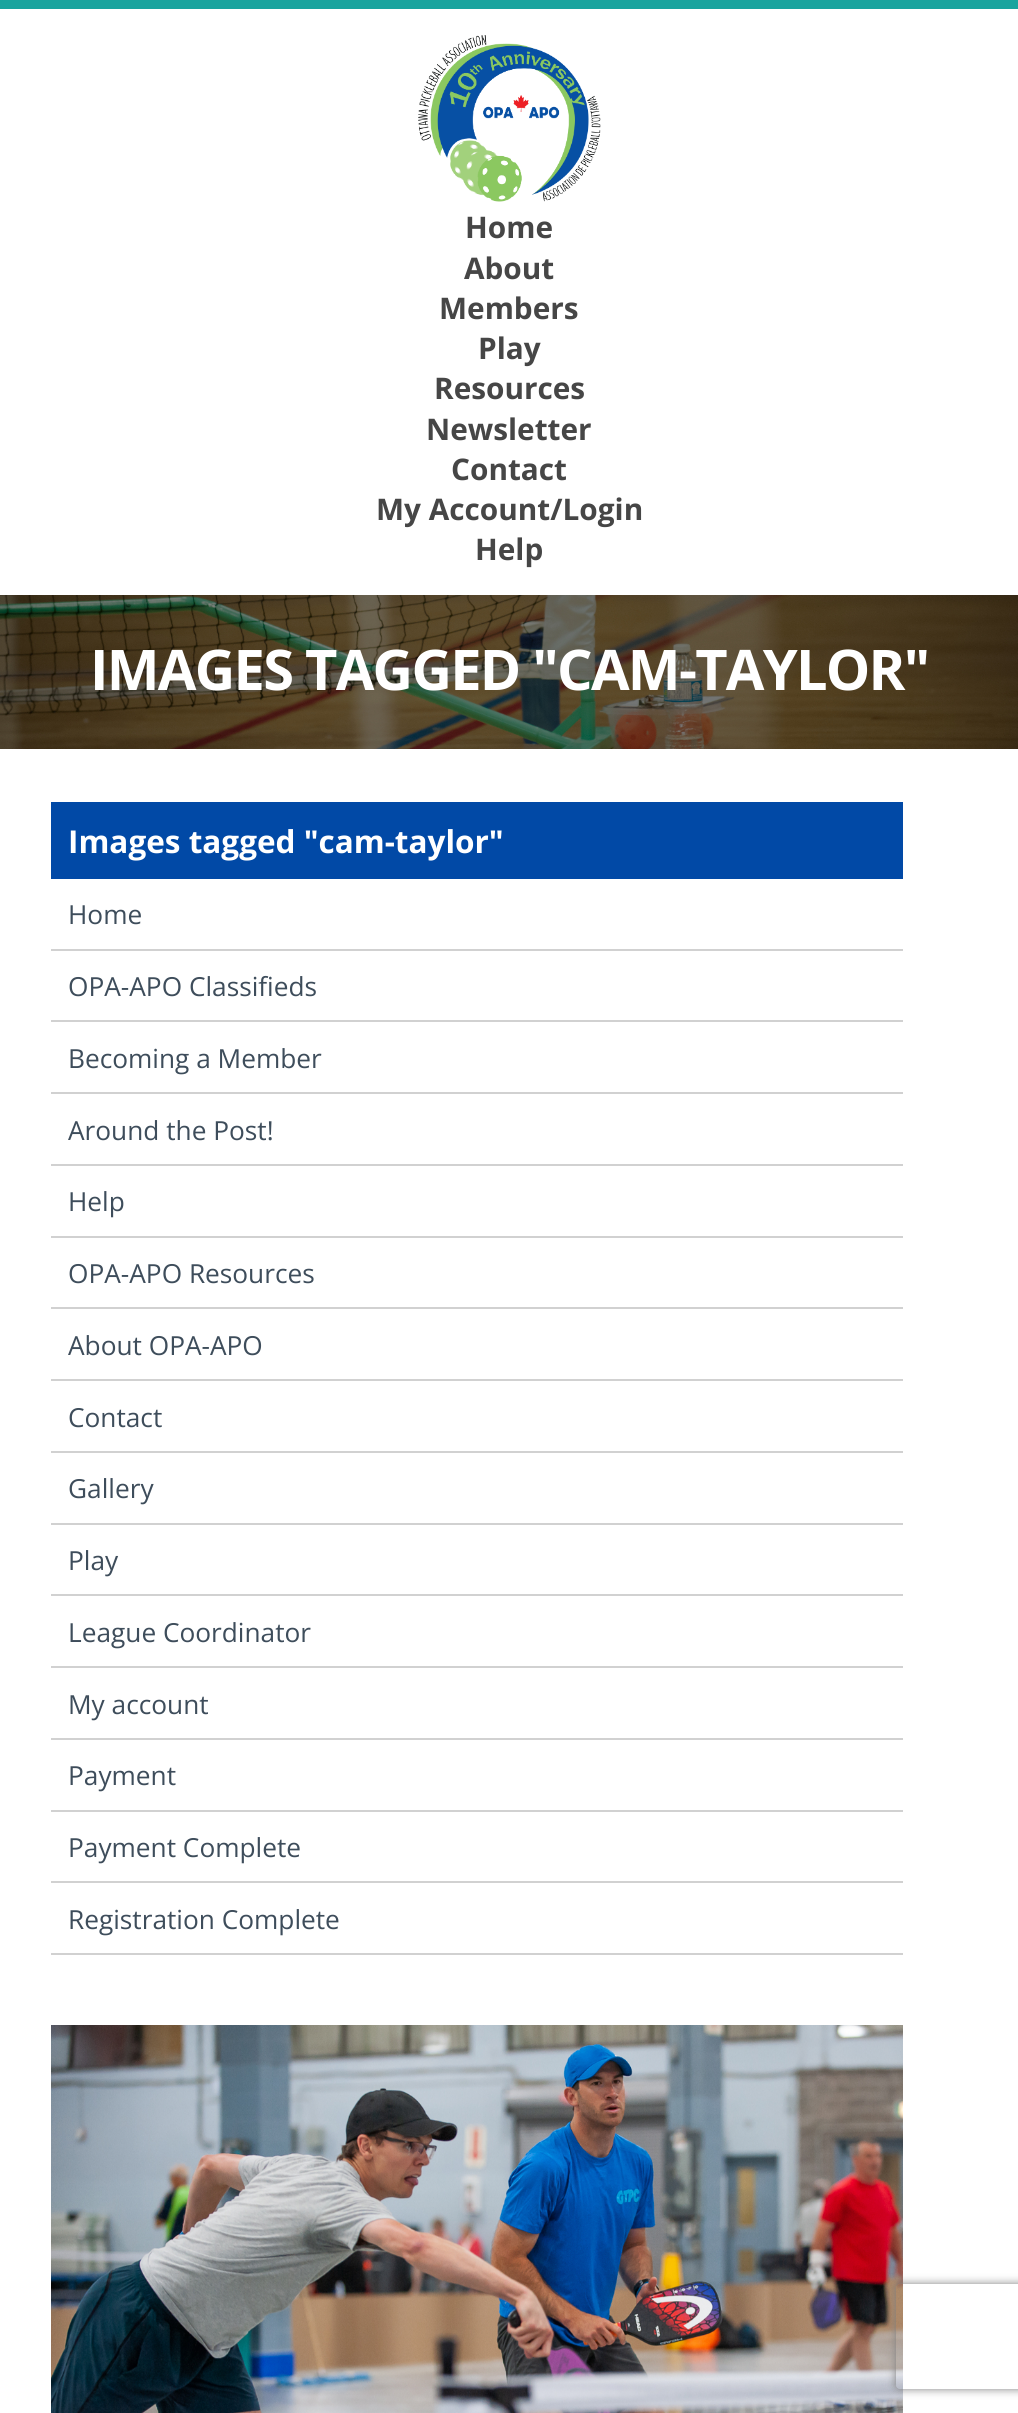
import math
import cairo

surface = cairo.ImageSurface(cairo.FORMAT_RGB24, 1018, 2413)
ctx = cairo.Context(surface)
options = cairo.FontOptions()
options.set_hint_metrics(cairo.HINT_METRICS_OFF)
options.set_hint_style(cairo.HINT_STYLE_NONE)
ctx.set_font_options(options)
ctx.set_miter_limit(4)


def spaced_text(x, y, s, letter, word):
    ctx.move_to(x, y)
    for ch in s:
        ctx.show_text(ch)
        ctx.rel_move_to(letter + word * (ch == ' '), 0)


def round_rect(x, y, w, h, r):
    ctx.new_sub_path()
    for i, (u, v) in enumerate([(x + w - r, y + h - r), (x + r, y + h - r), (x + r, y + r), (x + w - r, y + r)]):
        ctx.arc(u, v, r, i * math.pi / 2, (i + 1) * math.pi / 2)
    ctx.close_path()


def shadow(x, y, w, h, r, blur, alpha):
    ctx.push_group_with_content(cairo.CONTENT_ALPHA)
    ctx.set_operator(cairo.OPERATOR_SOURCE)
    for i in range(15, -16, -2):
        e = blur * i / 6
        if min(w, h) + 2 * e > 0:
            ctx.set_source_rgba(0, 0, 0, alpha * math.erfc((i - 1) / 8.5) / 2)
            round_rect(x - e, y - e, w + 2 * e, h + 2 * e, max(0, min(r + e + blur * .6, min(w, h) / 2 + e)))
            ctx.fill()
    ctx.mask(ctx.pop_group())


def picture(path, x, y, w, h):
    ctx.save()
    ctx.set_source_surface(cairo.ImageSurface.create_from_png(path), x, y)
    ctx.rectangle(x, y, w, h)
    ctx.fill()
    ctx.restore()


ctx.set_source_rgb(1, 1, 1)
ctx.paint()
ctx.set_source_rgb(0.098, 0.643, 0.62)
ctx.rectangle(0, 0, 1018, 9)
ctx.fill()
picture("img1.png", 418, 35, 183, 167)
ctx.select_font_face("Open Sans", cairo.FONT_SLANT_NORMAL, cairo.FONT_WEIGHT_BOLD)
ctx.set_font_size(29.75)
ctx.set_source_rgb(0.275, 0.275, 0.275)
ctx.move_to(465, 238)
ctx.show_text("Home")
ctx.move_to(464, 279)
ctx.show_text("About")
ctx.move_to(439, 319)
ctx.show_text("Members")
ctx.move_to(478, 359)
ctx.show_text("Play")
ctx.move_to(434, 399)
ctx.show_text("Resources")
ctx.move_to(426, 440)
ctx.show_text("Newsletter")
ctx.move_to(451, 480)
ctx.show_text("Contact")
ctx.move_to(376, 520)
ctx.show_text("My Account/Login")
ctx.move_to(475, 560)
ctx.show_text("Help")
picture("img2.png", 0, 595, 1018, 154)
ctx.set_font_size(56)
ctx.set_source_rgb(1, 1, 1)
spaced_text(90, 690, "IMAGES TAGGED \"CAM-TAYLOR\"", -1.75, 0)
ctx.set_source_rgb(0.004, 0.286, 0.651)
ctx.rectangle(51, 802, 852, 77)
ctx.fill()
ctx.set_font_size(31.5)
ctx.set_source_rgb(1, 1, 1)
ctx.move_to(68, 853)
ctx.show_text("Images tagged \"cam-taylor\"")
ctx.set_source_rgb(0.82, 0.82, 0.82)
ctx.rectangle(51, 949, 852, 2)
ctx.fill()
ctx.select_font_face("Open Sans")
ctx.set_font_size(26.25)
ctx.set_source_rgb(0.243, 0.302, 0.357)
ctx.move_to(68, 924)
ctx.show_text("Home")
ctx.set_source_rgb(0.82, 0.82, 0.82)
ctx.rectangle(51, 1020, 852, 2)
ctx.fill()
ctx.set_source_rgb(0.243, 0.302, 0.357)
ctx.move_to(68, 996)
ctx.show_text("OPA-APO Classifieds")
ctx.set_source_rgb(0.82, 0.82, 0.82)
ctx.rectangle(51, 1092, 852, 2)
ctx.fill()
ctx.set_source_rgb(0.243, 0.302, 0.357)
ctx.move_to(68, 1068)
ctx.show_text("Becoming a Member")
ctx.set_source_rgb(0.82, 0.82, 0.82)
ctx.rectangle(51, 1164, 852, 2)
ctx.fill()
ctx.set_source_rgb(0.243, 0.302, 0.357)
ctx.move_to(68, 1140)
ctx.show_text("Around the Post!")
ctx.set_source_rgb(0.82, 0.82, 0.82)
ctx.rectangle(51, 1236, 852, 2)
ctx.fill()
ctx.set_source_rgb(0.243, 0.302, 0.357)
ctx.move_to(68, 1211)
ctx.show_text("Help")
ctx.set_source_rgb(0.82, 0.82, 0.82)
ctx.rectangle(51, 1307, 852, 2)
ctx.fill()
ctx.set_source_rgb(0.243, 0.302, 0.357)
ctx.move_to(68, 1283)
ctx.show_text("OPA-APO Resources")
ctx.set_source_rgb(0.82, 0.82, 0.82)
ctx.rectangle(51, 1379, 852, 2)
ctx.fill()
ctx.set_source_rgb(0.243, 0.302, 0.357)
ctx.move_to(68, 1355)
ctx.show_text("About OPA-APO")
ctx.set_source_rgb(0.82, 0.82, 0.82)
ctx.rectangle(51, 1451, 852, 2)
ctx.fill()
ctx.set_source_rgb(0.243, 0.302, 0.357)
ctx.move_to(68, 1427)
ctx.show_text("Contact")
ctx.set_source_rgb(0.82, 0.82, 0.82)
ctx.rectangle(51, 1523, 852, 2)
ctx.fill()
ctx.set_source_rgb(0.243, 0.302, 0.357)
ctx.move_to(68, 1498)
ctx.show_text("Gallery")
ctx.set_source_rgb(0.82, 0.82, 0.82)
ctx.rectangle(51, 1594, 852, 2)
ctx.fill()
ctx.set_source_rgb(0.243, 0.302, 0.357)
ctx.move_to(68, 1570)
ctx.show_text("Play")
ctx.set_source_rgb(0.82, 0.82, 0.82)
ctx.rectangle(51, 1666, 852, 2)
ctx.fill()
ctx.set_source_rgb(0.243, 0.302, 0.357)
ctx.move_to(68, 1642)
ctx.show_text("League Coordinator")
ctx.set_source_rgb(0.82, 0.82, 0.82)
ctx.rectangle(51, 1738, 852, 2)
ctx.fill()
ctx.set_source_rgb(0.243, 0.302, 0.357)
ctx.move_to(68, 1714)
ctx.show_text("My account")
ctx.set_source_rgb(0.82, 0.82, 0.82)
ctx.rectangle(51, 1810, 852, 2)
ctx.fill()
ctx.set_source_rgb(0.243, 0.302, 0.357)
ctx.move_to(68, 1785)
ctx.show_text("Payment")
ctx.set_source_rgb(0.82, 0.82, 0.82)
ctx.rectangle(51, 1881, 852, 2)
ctx.fill()
ctx.set_source_rgb(0.243, 0.302, 0.357)
ctx.move_to(68, 1857)
ctx.show_text("Payment Complete")
ctx.set_source_rgb(0.82, 0.82, 0.82)
ctx.rectangle(51, 1953, 852, 2)
ctx.fill()
ctx.set_source_rgb(0.243, 0.302, 0.357)
ctx.move_to(68, 1929)
ctx.show_text("Registration Complete")
picture("img3.png", 51, 2025, 852, 388)
ctx.save()
ctx.set_fill_rule(cairo.FILL_RULE_EVEN_ODD)
ctx.new_path()
ctx.move_to(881, 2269)
ctx.line_to(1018, 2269)
ctx.line_to(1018, 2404)
ctx.line_to(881, 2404)
ctx.close_path()
ctx.move_to(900, 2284)
ctx.line_to(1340, 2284)
ctx.curve_to(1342, 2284, 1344, 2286, 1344, 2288)
ctx.line_to(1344, 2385)
ctx.curve_to(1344, 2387, 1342, 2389, 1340, 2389)
ctx.line_to(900, 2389)
ctx.curve_to(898, 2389, 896, 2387, 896, 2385)
ctx.line_to(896, 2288)
ctx.curve_to(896, 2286, 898, 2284, 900, 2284)
ctx.close_path()
ctx.clip()
ctx.set_source_rgb(0.502, 0.502, 0.502)
shadow(896, 2284, 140, 105, 4, 4.5, 1)
ctx.restore()
surface.write_to_png("page.png")
